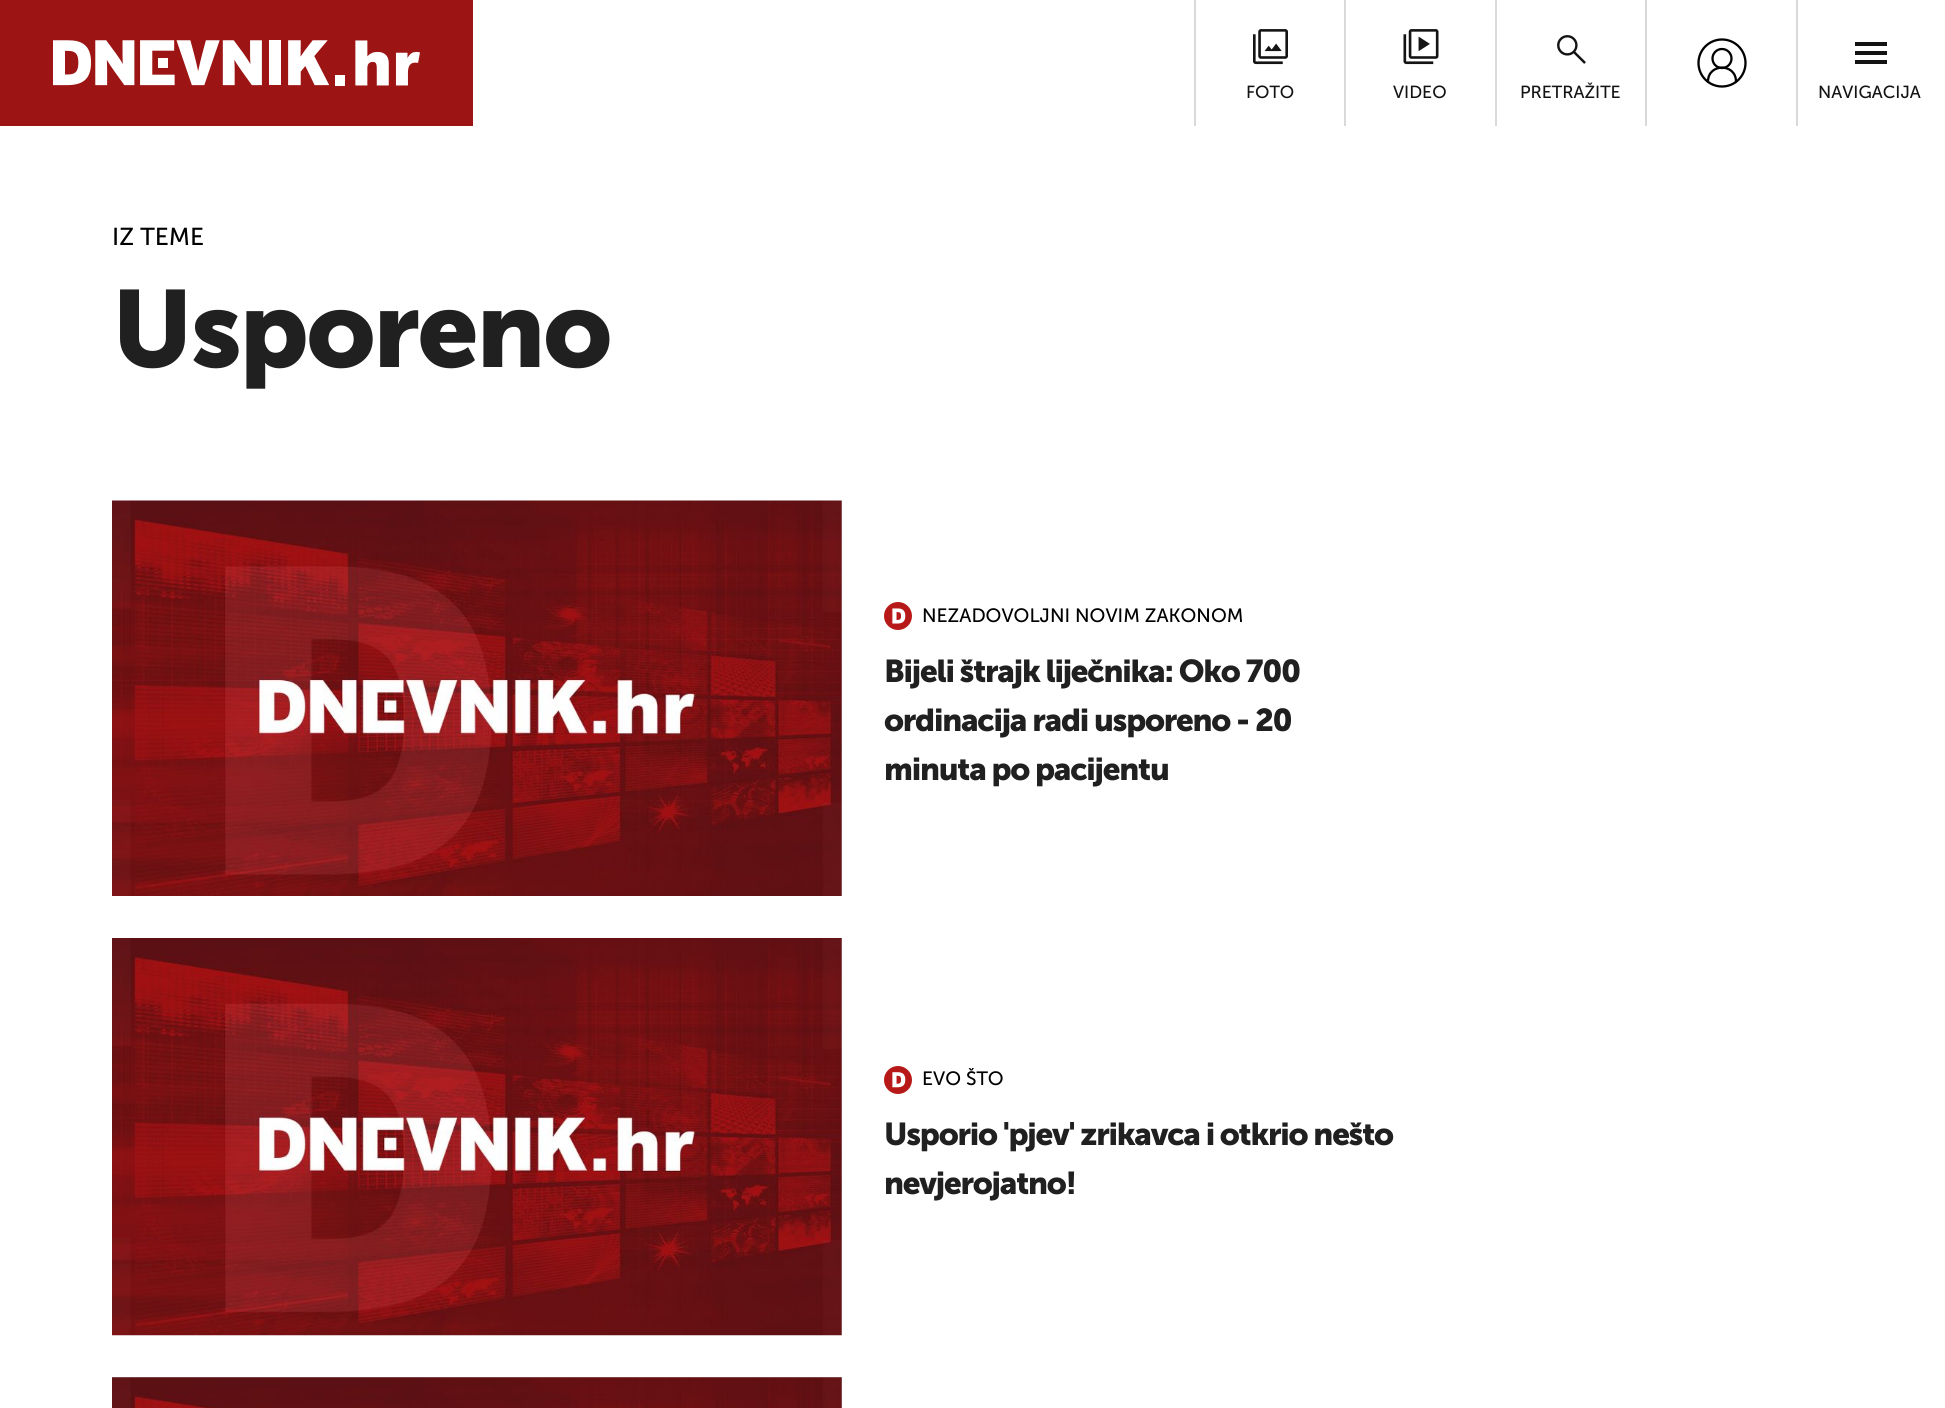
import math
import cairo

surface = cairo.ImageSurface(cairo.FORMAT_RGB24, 1945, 1408)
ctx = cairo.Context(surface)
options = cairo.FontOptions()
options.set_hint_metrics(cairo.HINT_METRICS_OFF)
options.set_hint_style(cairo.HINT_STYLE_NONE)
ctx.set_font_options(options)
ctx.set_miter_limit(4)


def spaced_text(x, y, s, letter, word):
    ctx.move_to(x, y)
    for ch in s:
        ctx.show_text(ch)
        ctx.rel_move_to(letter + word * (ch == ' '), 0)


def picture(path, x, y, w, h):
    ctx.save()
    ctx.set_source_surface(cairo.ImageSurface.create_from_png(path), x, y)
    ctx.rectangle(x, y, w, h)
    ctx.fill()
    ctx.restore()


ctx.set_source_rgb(1, 1, 1)
ctx.paint()
ctx.set_source_rgb(0.612, 0.082, 0.078)
ctx.rectangle(0, 0, 473, 126)
ctx.fill()
picture("img1.png", 53, 40, 367, 46)
ctx.set_source_rgb(0.851, 0.851, 0.851)
ctx.rectangle(1194, 0, 2, 126)
ctx.fill()
picture("img2.png", 1253, 29, 35, 36)
ctx.select_font_face("Museo Sans")
ctx.set_font_size(17.5)
ctx.set_source_rgb(0.078, 0.078, 0.078)
ctx.move_to(1246, 98)
ctx.show_text("FOTO")
ctx.set_source_rgb(0.851, 0.851, 0.851)
ctx.rectangle(1344, 0, 2, 126)
ctx.fill()
picture("img3.png", 1403, 29, 36, 36)
ctx.set_source_rgb(0.078, 0.078, 0.078)
ctx.move_to(1393, 98)
ctx.show_text("VIDEO")
ctx.set_source_rgb(0.851, 0.851, 0.851)
ctx.rectangle(1495, 0, 2, 126)
ctx.fill()
picture("img4.png", 1557, 35, 29, 29)
ctx.set_source_rgb(0.078, 0.078, 0.078)
ctx.move_to(1520, 98)
ctx.show_text("PRETRAŽITE")
ctx.set_source_rgb(0.851, 0.851, 0.851)
ctx.rectangle(1645, 0, 2, 126)
ctx.fill()
ctx.new_path()
ctx.move_to(1736, 81.5)
ctx.curve_to(1736, 63, 1708, 63, 1708, 81.5)
ctx.set_source_rgb(0, 0, 0)
ctx.set_line_width(2.3)
ctx.set_line_cap(cairo.LINE_CAP_ROUND)
ctx.set_line_join(cairo.LINE_JOIN_ROUND)
ctx.stroke()
ctx.arc(1722, 58.5, 9.5, 0, 2 * math.pi)
ctx.set_line_cap(cairo.LINE_CAP_BUTT)
ctx.set_line_join(cairo.LINE_JOIN_MITER)
ctx.stroke()
ctx.arc(1722, 63, 23.5, 0, 2 * math.pi)
ctx.stroke()
ctx.set_source_rgb(0.851, 0.851, 0.851)
ctx.rectangle(1796, 0, 2, 126)
ctx.fill()
ctx.set_source_rgb(0.078, 0.078, 0.078)
ctx.rectangle(1855, 51, 32, 4)
ctx.fill()
ctx.rectangle(1855, 42, 32, 4)
ctx.fill()
ctx.rectangle(1855, 60, 32, 4)
ctx.fill()
ctx.move_to(1818, 98)
ctx.show_text("NAVIGACIJA")
ctx.set_font_size(24.5)
ctx.set_source_rgb(0, 0, 0)
ctx.move_to(112, 245)
ctx.show_text("IZ TEME")
ctx.select_font_face("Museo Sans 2")
ctx.set_font_size(108.5)
ctx.set_source_rgb(0.125, 0.125, 0.125)
spaced_text(112, 367, "Usporeno", -2.25, 0)
picture("img5.png", 112, 500, 730, 396)
picture("img6.png", 884, 602, 28, 28)
ctx.select_font_face("Museo Sans")
ctx.set_font_size(19.25)
ctx.set_source_rgb(0, 0, 0)
ctx.move_to(922, 622)
ctx.show_text("NEZADOVOLJNI NOVIM ZAKONOM")
ctx.select_font_face("Museo Sans 2")
ctx.set_font_size(31.5)
ctx.set_source_rgb(0.125, 0.125, 0.125)
spaced_text(884, 682, "Bijeli štrajk liječnika: Oko 700", -1.25, 0)
spaced_text(884, 731, "ordinacija radi usporeno - 20", -1.25, 0)
spaced_text(884, 780, "minuta po pacijentu", -1.25, 0)
picture("img7.png", 112, 938, 730, 398)
picture("img8.png", 884, 1066, 28, 28)
ctx.select_font_face("Museo Sans")
ctx.set_font_size(19.25)
ctx.set_source_rgb(0, 0, 0)
ctx.move_to(922, 1085)
ctx.show_text("EVO ŠTO")
ctx.select_font_face("Museo Sans 2")
ctx.set_font_size(31.5)
ctx.set_source_rgb(0.125, 0.125, 0.125)
spaced_text(884, 1145, "Usporio 'pjev' zrikavca i otkrio nešto", -1.25, 0)
spaced_text(884, 1194, "nevjerojatno!", -1.25, 0)
ctx.set_source_rgb(0.851, 0.851, 0.851)
ctx.rectangle(112, 1377, 730, 31)
ctx.fill()
picture("img9.png", 112, 1377, 730, 31)
surface.write_to_png("page.png")
